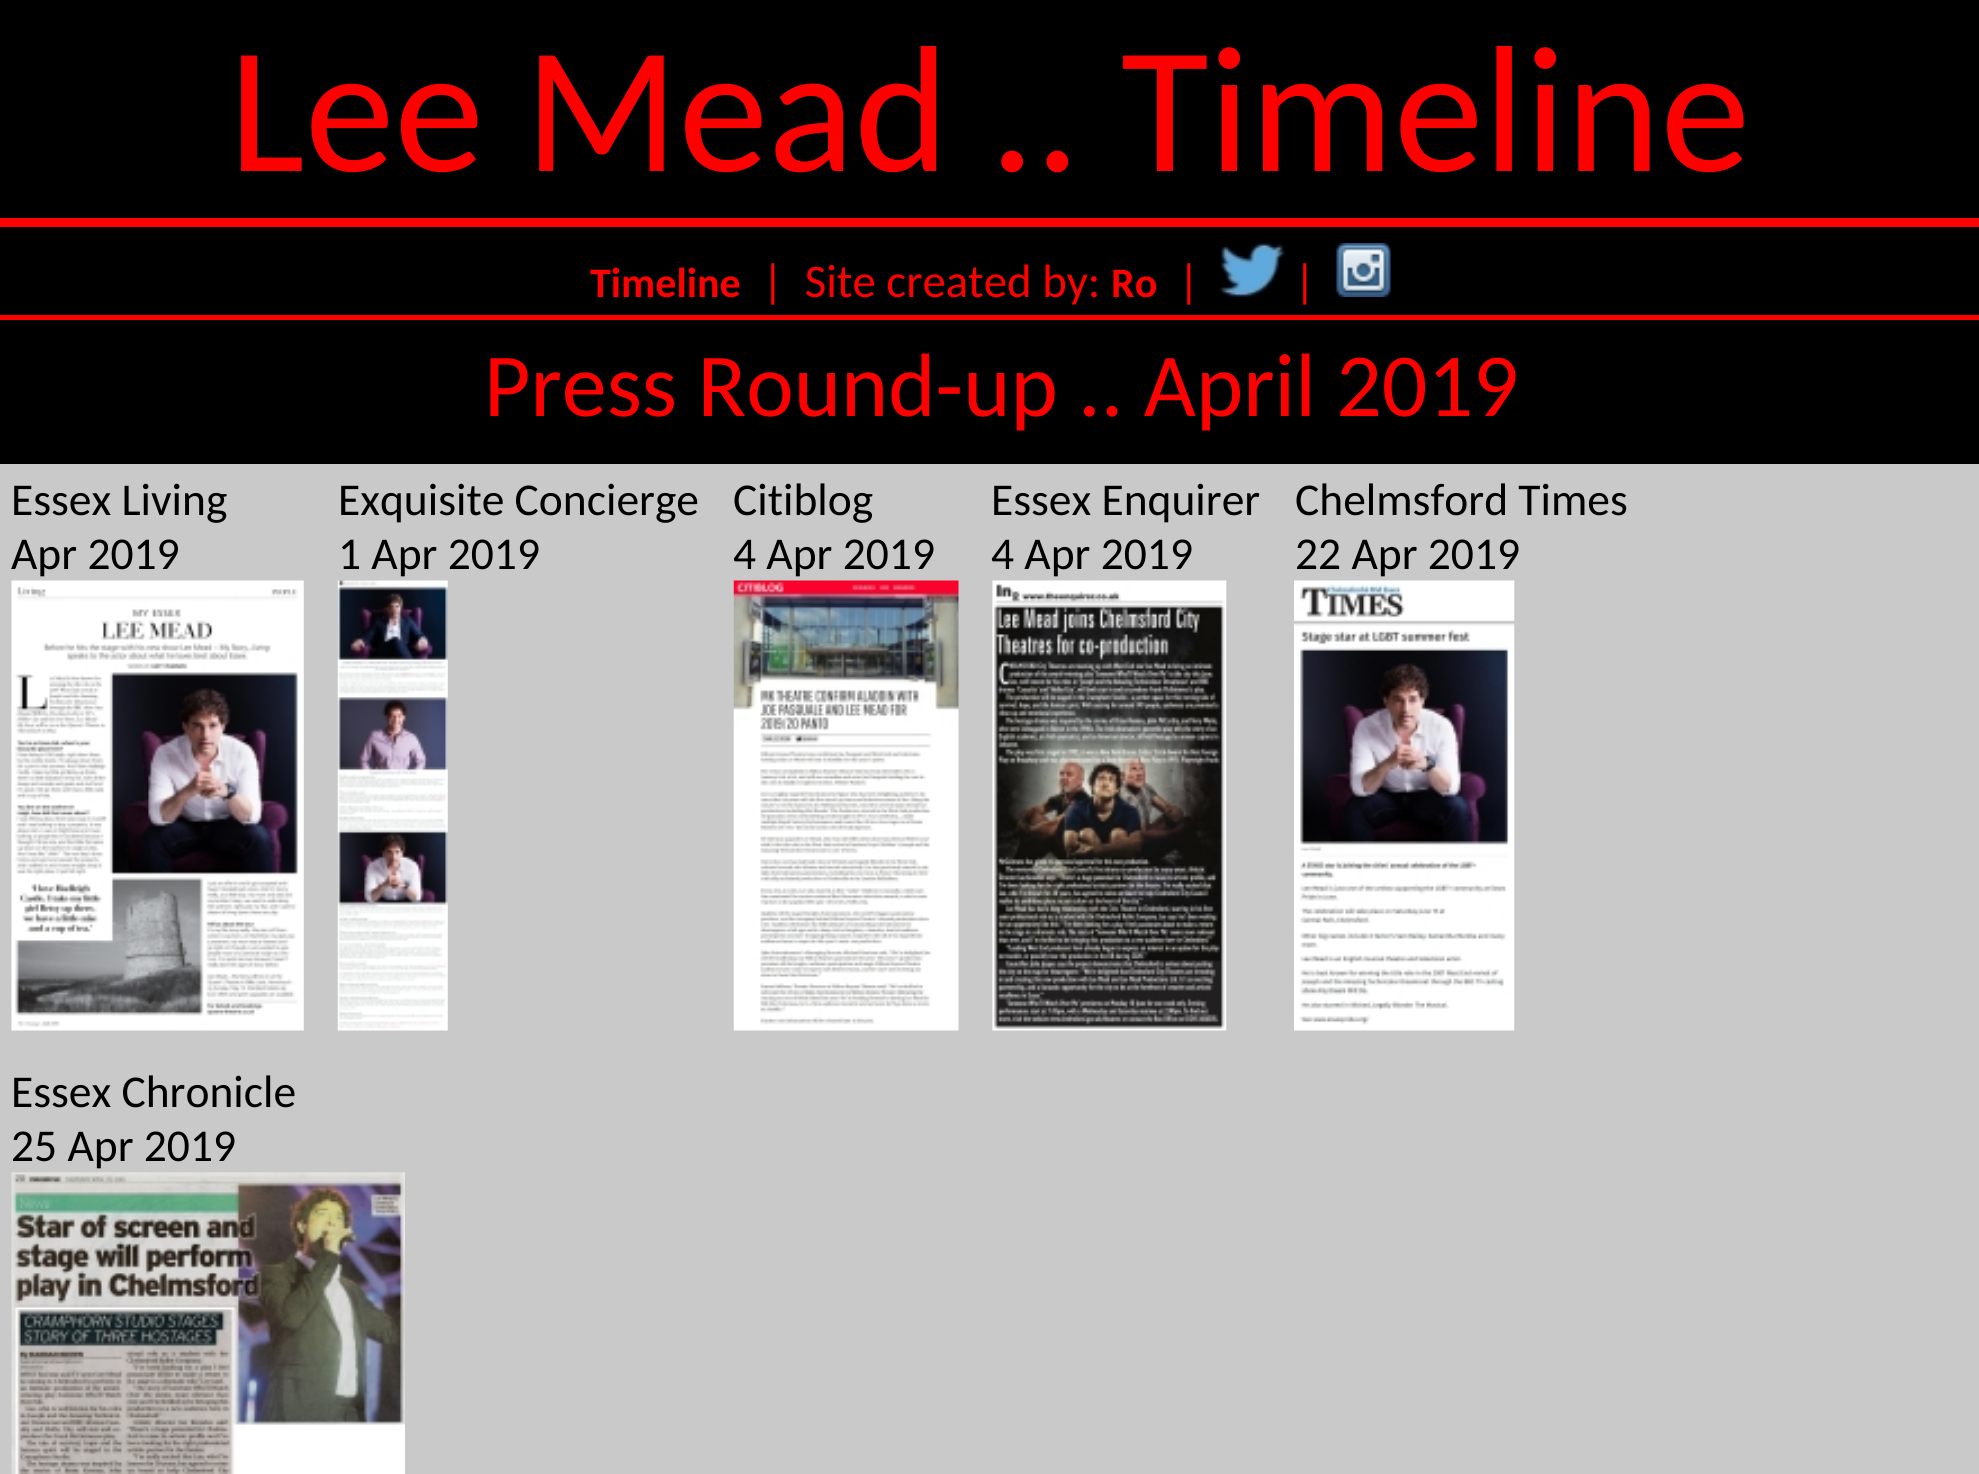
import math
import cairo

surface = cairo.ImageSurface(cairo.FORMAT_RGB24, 1979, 1474)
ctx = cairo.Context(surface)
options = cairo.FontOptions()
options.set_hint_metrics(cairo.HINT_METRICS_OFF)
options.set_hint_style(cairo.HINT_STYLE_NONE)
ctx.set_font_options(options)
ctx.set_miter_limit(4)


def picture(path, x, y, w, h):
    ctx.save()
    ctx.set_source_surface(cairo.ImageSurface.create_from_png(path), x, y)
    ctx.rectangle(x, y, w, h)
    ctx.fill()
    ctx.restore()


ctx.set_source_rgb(0, 0, 0)
ctx.paint()
ctx.set_source_rgb(1, 0, 0)
ctx.rectangle(0, 218, 1979, 9)
ctx.fill()
ctx.select_font_face("Carlito")
ctx.set_font_size(180)
ctx.move_to(229, 171)
ctx.show_text("Lee Mead .. Timeline")
ctx.rectangle(0, 315, 1979, 5)
ctx.fill()
ctx.select_font_face("Carlito", cairo.FONT_SLANT_NORMAL, cairo.FONT_WEIGHT_BOLD)
ctx.set_font_size(42)
ctx.move_to(590, 297)
ctx.show_text("Timeline")
ctx.select_font_face("Carlito")
ctx.set_font_size(46.75)
ctx.move_to(762, 297)
ctx.show_text("|  Site created by:")
ctx.select_font_face("Carlito", cairo.FONT_SLANT_NORMAL, cairo.FONT_WEIGHT_BOLD)
ctx.set_font_size(42)
ctx.move_to(1111, 297)
ctx.show_text("Ro")
ctx.select_font_face("Carlito")
ctx.set_font_size(46.75)
ctx.move_to(1178, 297)
ctx.show_text("|")
picture("img1.png", 1219, 243, 67, 54)
ctx.move_to(1294, 297)
ctx.show_text("|")
picture("img2.png", 1336, 243, 55, 54)
ctx.set_font_size(90)
ctx.move_to(484, 416)
ctx.show_text("Press Round-up .. April 2019")
ctx.set_source_rgb(0.788, 0.788, 0.788)
ctx.rectangle(0, 464, 1979, 1010)
ctx.fill()
ctx.set_font_size(45.5)
ctx.set_source_rgb(0, 0, 0)
ctx.move_to(11, 515)
ctx.show_text("Essex Living")
ctx.move_to(11, 569)
ctx.show_text("Apr 2019")
picture("img3.png", 11, 580, 293, 451)
ctx.move_to(338, 515)
ctx.show_text("Exquisite Concierge")
ctx.move_to(338, 569)
ctx.show_text("1 Apr 2019")
picture("img4.png", 337, 580, 111, 451)
ctx.move_to(733, 515)
ctx.show_text("Citiblog")
ctx.save()
ctx.rectangle(734, 473, 258, 591)
ctx.clip()
ctx.move_to(733, 569)
ctx.show_text("4 Apr 2019")
ctx.restore()
picture("img5.png", 733, 580, 226, 451)
ctx.move_to(991, 515)
ctx.show_text("Essex Enquirer")
ctx.move_to(991, 569)
ctx.show_text("4 Apr 2019")
picture("img6.png", 992, 580, 235, 451)
ctx.move_to(1295, 515)
ctx.show_text("Chelmsford Times")
ctx.move_to(1295, 569)
ctx.show_text("22 Apr 2019")
picture("img7.png", 1294, 580, 221, 451)
ctx.move_to(11, 1107)
ctx.show_text("Essex Chronicle")
ctx.move_to(11, 1161)
ctx.show_text("25 Apr 2019")
picture("img8.png", 11, 1172, 394, 302)
surface.write_to_png("page.png")
